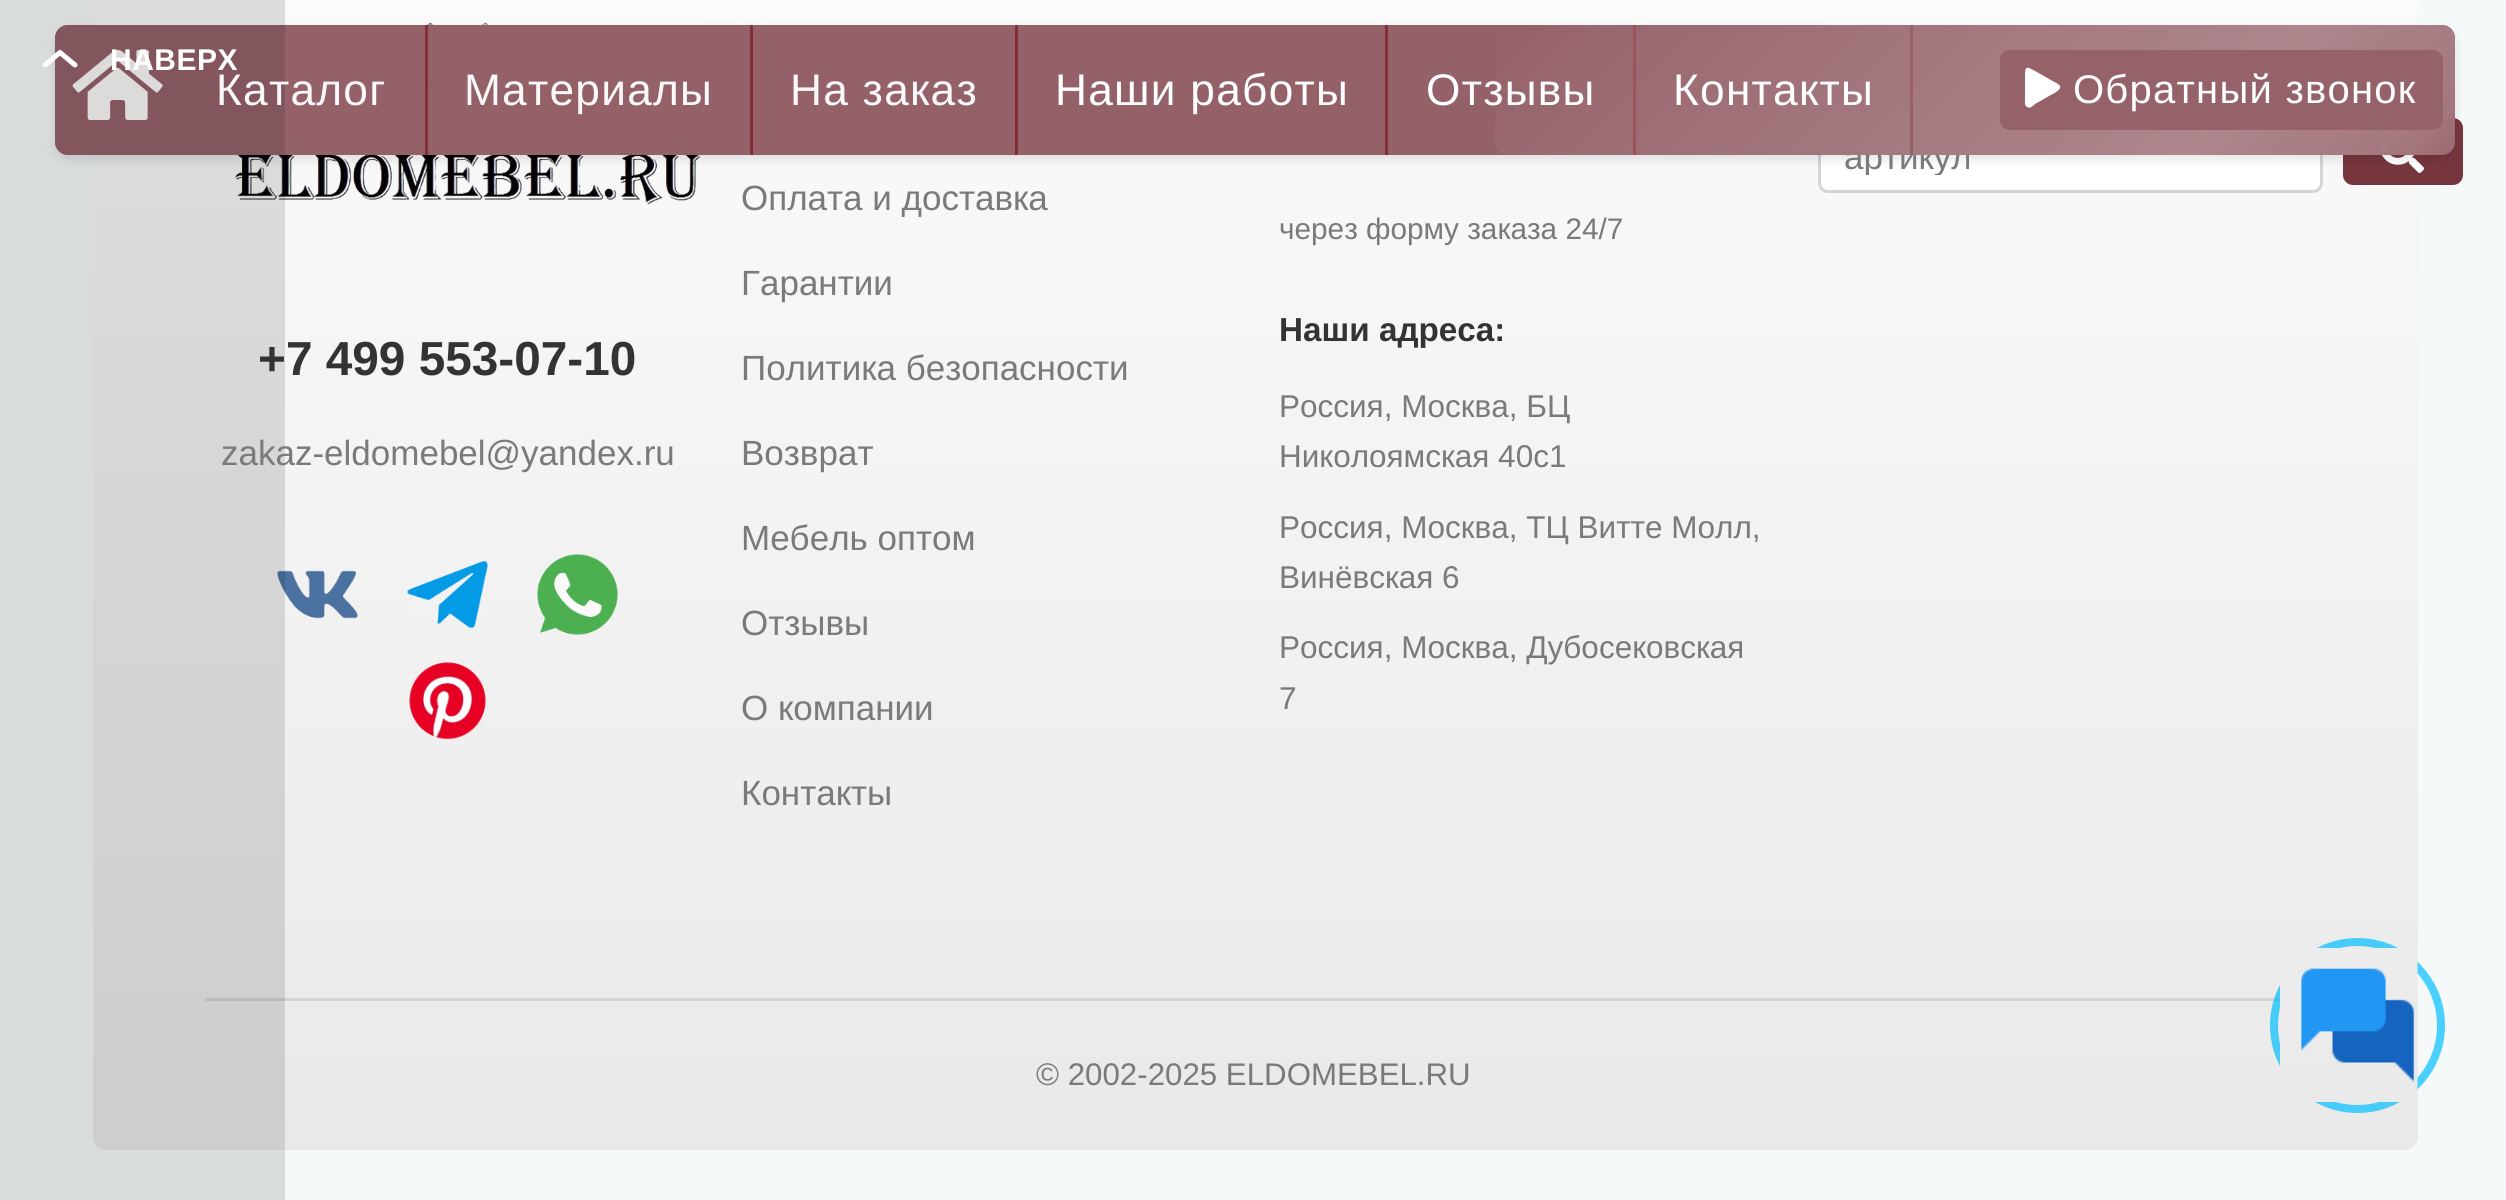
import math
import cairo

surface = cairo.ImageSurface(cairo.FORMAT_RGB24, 2506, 1200)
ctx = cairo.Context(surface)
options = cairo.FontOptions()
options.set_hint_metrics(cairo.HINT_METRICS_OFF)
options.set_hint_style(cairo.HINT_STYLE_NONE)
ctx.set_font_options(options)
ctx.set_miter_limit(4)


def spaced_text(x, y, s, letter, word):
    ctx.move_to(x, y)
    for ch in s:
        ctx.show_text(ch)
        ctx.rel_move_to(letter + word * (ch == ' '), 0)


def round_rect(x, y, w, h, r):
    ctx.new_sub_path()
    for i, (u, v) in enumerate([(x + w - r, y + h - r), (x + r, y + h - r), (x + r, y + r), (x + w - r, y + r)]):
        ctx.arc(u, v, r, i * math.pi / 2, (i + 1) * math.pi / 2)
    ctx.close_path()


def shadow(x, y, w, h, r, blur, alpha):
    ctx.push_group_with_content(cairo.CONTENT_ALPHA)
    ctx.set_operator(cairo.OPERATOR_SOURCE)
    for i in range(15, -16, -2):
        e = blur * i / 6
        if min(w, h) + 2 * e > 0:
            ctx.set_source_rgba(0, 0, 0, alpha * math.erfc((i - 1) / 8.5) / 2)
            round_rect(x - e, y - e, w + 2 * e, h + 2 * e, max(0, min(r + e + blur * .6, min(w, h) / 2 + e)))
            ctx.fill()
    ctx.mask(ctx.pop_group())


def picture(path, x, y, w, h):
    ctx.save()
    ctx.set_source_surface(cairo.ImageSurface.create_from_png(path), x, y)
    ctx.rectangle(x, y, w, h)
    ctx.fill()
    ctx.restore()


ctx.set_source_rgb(0.961, 0.973, 0.98)
ctx.paint()
ctx.set_source_rgb(0.961, 0.961, 0.961)
round_rect(93, -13, 2325, 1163, 13)
ctx.fill()
ctx.save()
round_rect(93, -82, 2325, 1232, 13)
ctx.clip()
gradient = cairo.LinearGradient(1255, -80, 1255, 1150)
gradient.add_color_stop_rgba(0, 0.992, 0.988, 0.988, 1)
gradient.add_color_stop_rgba(1, 0.914, 0.914, 0.914, 1)
ctx.set_source(gradient)
ctx.new_path()
ctx.move_to(93, -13)
ctx.line_to(2418, -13)
ctx.line_to(2418, 1137)
ctx.curve_to(2418, 1144, 2412, 1150, 2405, 1150)
ctx.line_to(106, 1150)
ctx.curve_to(99, 1150, 93, 1144, 93, 1137)
ctx.close_path()
ctx.fill()
ctx.restore()
ctx.set_source_rgb(1, 1, 1)
round_rect(1819.5, 119.5, 502, 72, 8.5)
ctx.fill_preserve()
ctx.set_source_rgb(0.831, 0.831, 0.831)
ctx.set_line_width(3)
ctx.stroke()
ctx.set_source_rgb(0.467, 0.212, 0.243)
round_rect(2343, 118, 120, 67, 10)
ctx.fill()
picture("img3.png", 2380, 129, 44, 44)
picture("img4.png", 235, 22, 466, 183)
ctx.save()
ctx.set_fill_rule(cairo.FILL_RULE_EVEN_ODD)
ctx.new_path()
ctx.move_to(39, 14)
ctx.line_to(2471, 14)
ctx.line_to(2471, 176)
ctx.line_to(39, 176)
ctx.close_path()
ctx.move_to(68, 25)
ctx.line_to(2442, 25)
ctx.curve_to(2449, 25, 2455, 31, 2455, 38)
ctx.line_to(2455, 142)
ctx.curve_to(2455, 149, 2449, 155, 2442, 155)
ctx.line_to(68, 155)
ctx.curve_to(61, 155, 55, 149, 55, 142)
ctx.line_to(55, 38)
ctx.curve_to(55, 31, 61, 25, 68, 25)
ctx.close_path()
ctx.clip()
ctx.set_source_rgb(0, 0, 0)
shadow(55, 30, 2400, 130, 13, 5, 0.1)
ctx.restore()
ctx.save()
ctx.rectangle(1845, 135, 450, 40)
ctx.clip()
ctx.select_font_face("Liberation Sans")
ctx.set_font_size(35)
ctx.set_source_rgb(0.478, 0.478, 0.478)
ctx.move_to(1844, 169)
ctx.show_text("артикул")
ctx.restore()
ctx.set_source_rgba(0.58, 0.38, 0.408, 0.95)
round_rect(55, 25, 2400, 130, 13)
ctx.fill()
ctx.set_source_rgba(0.58, 0.38, 0.408, 0.85)
round_rect(55, 25, 2400, 130, 13)
ctx.fill()
picture("img2.png", 72, 50, 91, 70)
picture("img5.png", 277, 570, 81, 49)
ctx.set_source_rgb(0.831, 0.831, 0.831)
ctx.rectangle(205, 998, 2075, 3)
ctx.fill()
ctx.set_source_rgba(0, 0, 0, 0.12)
ctx.rectangle(0, 0, 285, 1200)
ctx.fill()
picture("img1.png", 42, 50, 36, 18)
ctx.select_font_face("Liberation Sans", cairo.FONT_SLANT_NORMAL, cairo.FONT_WEIGHT_BOLD)
ctx.set_font_size(30)
ctx.set_source_rgb(1, 1, 1)
spaced_text(110, 70, "НАВЕРХ", 0.5, 0)
ctx.select_font_face("Liberation Sans")
ctx.set_font_size(44.25)
ctx.set_source_rgb(0.98, 0.969, 0.973)
spaced_text(216, 105, "Каталог", 1.25, 0)
ctx.set_source_rgb(0.522, 0.18, 0.22)
ctx.rectangle(425, 25, 3, 130)
ctx.fill()
ctx.set_source_rgb(0.98, 0.969, 0.973)
spaced_text(464, 105, "Материалы", 1.25, 0)
ctx.set_source_rgb(0.522, 0.18, 0.22)
ctx.rectangle(750, 25, 3, 130)
ctx.fill()
ctx.set_source_rgb(0.98, 0.969, 0.973)
spaced_text(790, 105, "На заказ", 1.25, 0)
ctx.set_source_rgb(0.522, 0.18, 0.22)
ctx.rectangle(1015, 25, 3, 130)
ctx.fill()
ctx.set_source_rgb(1, 1, 1)
spaced_text(1055, 105, "Наши работы", 1.25, 0)
ctx.set_source_rgb(0.522, 0.18, 0.22)
ctx.rectangle(1385, 25, 3, 130)
ctx.fill()
gradient = cairo.LinearGradient(1703, -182, 2248, 363)
gradient.add_color_stop_rgba(0, 1, 1, 1, 0)
gradient.add_color_stop_rgba(0.2, 1, 1, 1, 0.07)
gradient.add_color_stop_rgba(0.5, 1, 1, 1, 0.16)
gradient.add_color_stop_rgba(0.75, 1, 1, 1, 0.23)
gradient.add_color_stop_rgba(0.95, 1, 1, 1, 0.14)
gradient.add_color_stop_rgba(1, 1, 1, 1, 0.05)
ctx.set_source(gradient)
round_rect(1495, 25, 960, 130, 13)
ctx.fill()
ctx.set_source_rgb(1, 1, 1)
spaced_text(1426, 105, "Отзывы", 1.25, 0)
ctx.set_source_rgb(0.616, 0.325, 0.353)
ctx.rectangle(1633, 25, 3, 130)
ctx.fill()
ctx.set_source_rgba(0.58, 0.38, 0.408, 0.95)
ctx.rectangle(1910, 25, 3, 130)
ctx.fill()
ctx.set_source_rgb(1, 1, 1)
spaced_text(1673, 105, "Контакты", 1.25, 0)
ctx.set_source_rgba(0.58, 0.38, 0.408, 0.95)
round_rect(2000, 50, 443, 80, 10)
ctx.fill()
ctx.set_source_rgb(1, 1, 1)
ctx.new_path()
ctx.move_to(2058, 84)
ctx.curve_to(2066, 89, 2050, 95, 2049, 96)
ctx.line_to(2035, 104)
ctx.curve_to(2033, 106, 2030, 109, 2027, 107)
ctx.curve_to(2024, 105, 2025, 101, 2025, 98)
ctx.line_to(2025, 77)
ctx.curve_to(2025, 66, 2026, 66, 2035, 71)
ctx.close_path()
ctx.fill()
ctx.set_font_size(40)
spaced_text(2073, 103, "Обратный звонок", 1.25, 0)
ctx.select_font_face("Liberation Sans", cairo.FONT_SLANT_NORMAL, cairo.FONT_WEIGHT_BOLD)
ctx.set_font_size(47.75)
ctx.set_source_rgb(0.2, 0.2, 0.2)
ctx.move_to(258, 375)
ctx.show_text("+7 499 553-07-10")
ctx.select_font_face("Liberation Sans")
ctx.set_font_size(35)
ctx.set_source_rgb(0.478, 0.478, 0.478)
ctx.move_to(221, 465)
ctx.show_text("zakaz-eldomebel@yandex.ru")
picture("img6.png", 407, 561, 81, 67)
picture("img7.png", 537, 554, 81, 81)
picture("img8.png", 409, 662, 77, 78)
ctx.move_to(741, 210)
ctx.show_text("Оплата и доставка")
ctx.move_to(741, 295)
ctx.show_text("Гарантии")
ctx.move_to(741, 380)
ctx.show_text("Политика безопасности")
ctx.move_to(741, 465)
ctx.show_text("Возврат")
ctx.move_to(741, 550)
ctx.show_text("Мебель оптом")
ctx.move_to(741, 635)
ctx.show_text("Отзывы")
ctx.move_to(741, 720)
ctx.show_text("О компании")
ctx.move_to(741, 805)
ctx.show_text("Контакты")
ctx.set_font_size(29.75)
ctx.move_to(1279, 239)
ctx.show_text("через форму заказа 24/7")
ctx.select_font_face("Liberation Sans", cairo.FONT_SLANT_NORMAL, cairo.FONT_WEIGHT_BOLD)
ctx.set_font_size(33.25)
ctx.set_source_rgb(0.2, 0.2, 0.2)
ctx.move_to(1279, 341)
ctx.show_text("Наши адреса:")
ctx.select_font_face("Liberation Sans")
ctx.set_font_size(31.5)
ctx.set_source_rgb(0.478, 0.478, 0.478)
ctx.move_to(1279, 417)
ctx.show_text("Россия, Москва, БЦ")
ctx.move_to(1279, 467)
ctx.show_text("Николоямская 40с1")
ctx.move_to(1279, 538)
ctx.show_text("Россия, Москва, ТЦ Витте Молл,")
ctx.move_to(1279, 588)
ctx.show_text("Винёвская 6")
ctx.move_to(1279, 658)
ctx.show_text("Россия, Москва, Дубосековская")
ctx.move_to(1279, 709)
ctx.show_text("7")
ctx.set_font_size(31.25)
ctx.move_to(1036, 1085)
ctx.show_text("© 2002-2025 ELDOMEBEL.RU")
ctx.new_path()
ctx.arc(2357.5, 1025.5, 83.5, 0, 2 * math.pi)
ctx.set_source_rgba(0, 0.749, 1, 0.7)
ctx.set_line_width(8)
ctx.stroke()
picture("img9.png", 2280, 948, 138, 154)
surface.write_to_png("page.png")
